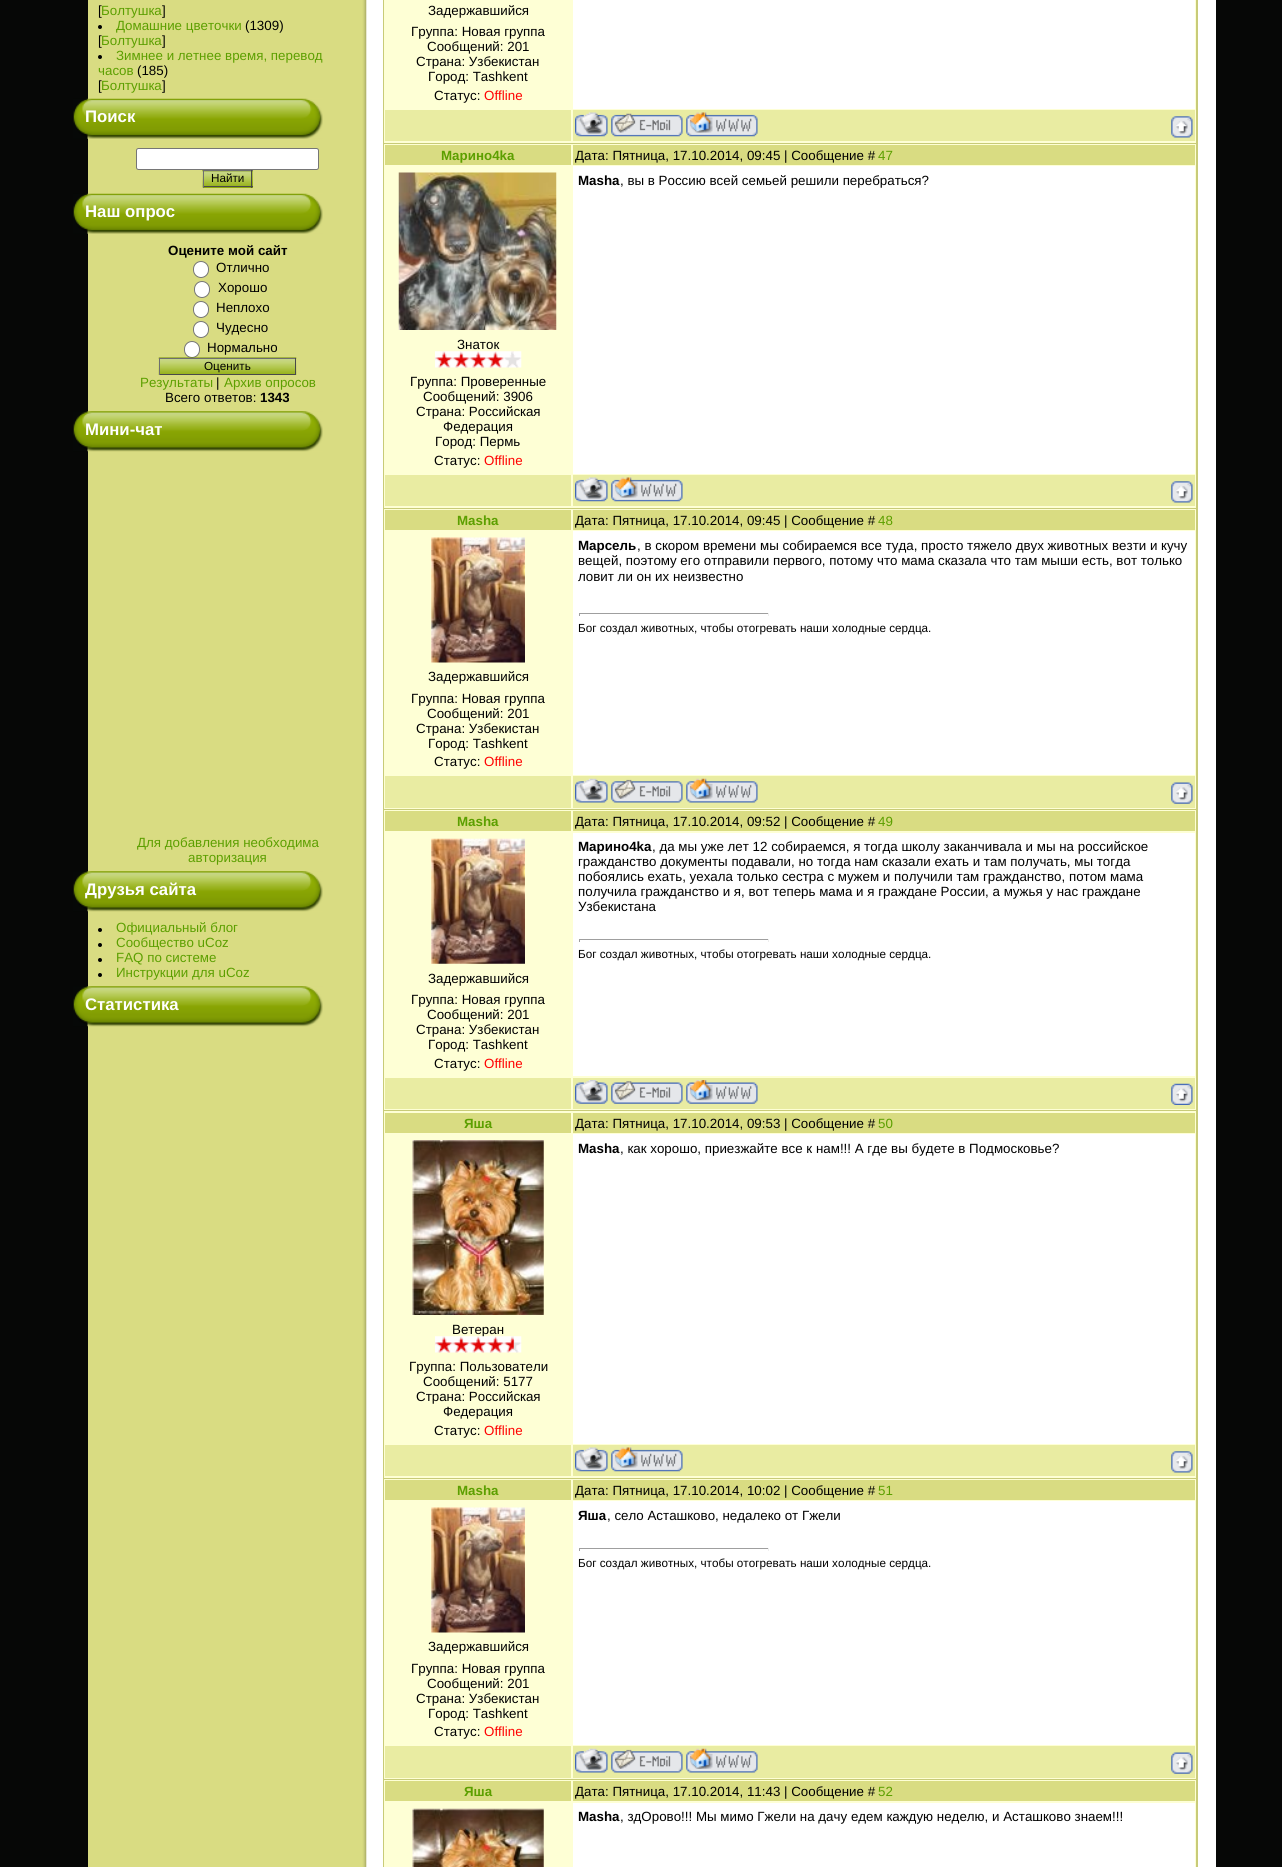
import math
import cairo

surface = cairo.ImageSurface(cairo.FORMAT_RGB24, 1282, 1867)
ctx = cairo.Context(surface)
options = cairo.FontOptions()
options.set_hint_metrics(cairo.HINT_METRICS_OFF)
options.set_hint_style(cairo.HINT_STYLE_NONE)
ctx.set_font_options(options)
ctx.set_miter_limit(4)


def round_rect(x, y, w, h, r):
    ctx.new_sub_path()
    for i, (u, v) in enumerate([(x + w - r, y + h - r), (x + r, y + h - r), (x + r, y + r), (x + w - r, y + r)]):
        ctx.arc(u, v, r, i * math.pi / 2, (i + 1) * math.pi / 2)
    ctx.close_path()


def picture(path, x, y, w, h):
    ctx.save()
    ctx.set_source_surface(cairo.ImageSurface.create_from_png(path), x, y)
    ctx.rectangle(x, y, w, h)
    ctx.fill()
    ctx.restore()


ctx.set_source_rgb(0.024, 0.031, 0.027)
ctx.paint()
ctx.set_source_rgb(0.851, 0.863, 0.51)
ctx.rectangle(88, 0, 270, 1867)
ctx.fill()
ctx.select_font_face("Liberation Sans")
ctx.set_font_size(13.35)
ctx.set_source_rgb(0, 0, 0)
ctx.move_to(98, 15)
ctx.show_text("[")
ctx.set_source_rgb(0.361, 0.624, 0)
ctx.move_to(101, 15)
ctx.show_text("Болтушка")
ctx.set_source_rgb(0, 0, 0)
ctx.move_to(162, 15)
ctx.show_text("]")
ctx.new_path()
ctx.arc(100, 27, 2, 0, 2 * math.pi)
ctx.fill()
ctx.set_source_rgb(0.361, 0.624, 0)
ctx.move_to(116, 30)
ctx.show_text("Домашние цветочки")
ctx.set_source_rgb(0, 0, 0)
ctx.move_to(245, 30)
ctx.show_text("(1309)")
ctx.move_to(98, 45)
ctx.show_text("[")
ctx.set_source_rgb(0.361, 0.624, 0)
ctx.move_to(101, 45)
ctx.show_text("Болтушка")
ctx.set_source_rgb(0, 0, 0)
ctx.move_to(162, 45)
ctx.show_text("]")
ctx.new_path()
ctx.arc(100, 57, 2, 0, 2 * math.pi)
ctx.fill()
ctx.set_source_rgb(0.361, 0.624, 0)
ctx.move_to(116, 60)
ctx.show_text("Зимнее и летнее время, перевод")
ctx.move_to(98, 75)
ctx.show_text("часов")
ctx.set_source_rgb(0, 0, 0)
ctx.move_to(137, 75)
ctx.show_text("(185)")
ctx.move_to(98, 90)
ctx.show_text("[")
ctx.set_source_rgb(0.361, 0.624, 0)
ctx.move_to(101, 90)
ctx.show_text("Болтушка")
ctx.set_source_rgb(0, 0, 0)
ctx.move_to(162, 90)
ctx.show_text("]")
picture("img1.png", 73, 98, 250, 41)
ctx.select_font_face("Liberation Sans", cairo.FONT_SLANT_NORMAL, cairo.FONT_WEIGHT_BOLD)
ctx.set_font_size(16.75)
ctx.set_source_rgb(1, 1, 1)
ctx.move_to(85, 122)
ctx.show_text("Поиск")
round_rect(136.5, 148.5, 182, 21, 2)
ctx.fill_preserve()
ctx.set_source_rgb(0.463, 0.463, 0.463)
ctx.set_line_width(1)
ctx.stroke()
ctx.set_source_rgb(0.529, 0.639, 0.012)
ctx.rectangle(204, 171, 49, 17)
ctx.fill()
picture("img2.png", 202, 170, 51, 18)
ctx.set_source_rgb(0.431, 0.431, 0.431)
ctx.rectangle(203, 170, 50, 1)
ctx.fill()
ctx.set_source_rgb(0.286, 0.286, 0.286)
ctx.rectangle(251, 170, 1, 18)
ctx.fill()
ctx.rectangle(203, 186, 50, 1)
ctx.fill()
ctx.set_source_rgb(0.431, 0.431, 0.431)
ctx.rectangle(203, 170, 1, 18)
ctx.fill()
ctx.select_font_face("Liberation Sans")
ctx.set_font_size(11.7)
ctx.set_source_rgb(0, 0, 0)
ctx.move_to(211, 182)
ctx.show_text("Найти")
picture("img1.png", 73, 193, 250, 41)
ctx.select_font_face("Liberation Sans", cairo.FONT_SLANT_NORMAL, cairo.FONT_WEIGHT_BOLD)
ctx.set_font_size(16.75)
ctx.set_source_rgb(1, 1, 1)
ctx.move_to(85, 217)
ctx.show_text("Наш опрос")
ctx.set_font_size(13.35)
ctx.set_source_rgb(0, 0, 0)
ctx.move_to(168, 255)
ctx.show_text("Оцените мой сайт")
ctx.set_source_rgb(1, 1, 1)
round_rect(193.5, 261.5, 15, 16, 7.5)
ctx.fill_preserve()
ctx.set_source_rgb(0.463, 0.463, 0.463)
ctx.stroke()
ctx.select_font_face("Liberation Sans")
ctx.set_source_rgb(0, 0, 0)
ctx.move_to(216, 272)
ctx.show_text("Отлично")
ctx.set_source_rgb(1, 1, 1)
round_rect(194.5, 281.5, 15, 16, 7.5)
ctx.fill_preserve()
ctx.set_source_rgb(0.463, 0.463, 0.463)
ctx.stroke()
ctx.set_source_rgb(0, 0, 0)
ctx.move_to(218, 292)
ctx.show_text("Хорошо")
ctx.set_source_rgb(1, 1, 1)
round_rect(193.5, 301.5, 15, 16, 7.5)
ctx.fill_preserve()
ctx.set_source_rgb(0.463, 0.463, 0.463)
ctx.stroke()
ctx.set_source_rgb(0, 0, 0)
ctx.move_to(216, 312)
ctx.show_text("Неплохо")
ctx.set_source_rgb(1, 1, 1)
round_rect(193.5, 321.5, 15, 16, 7.5)
ctx.fill_preserve()
ctx.set_source_rgb(0.463, 0.463, 0.463)
ctx.stroke()
ctx.set_source_rgb(0, 0, 0)
ctx.move_to(216, 332)
ctx.show_text("Чудесно")
ctx.set_source_rgb(1, 1, 1)
round_rect(184.5, 341.5, 15, 16, 7.5)
ctx.fill_preserve()
ctx.set_source_rgb(0.463, 0.463, 0.463)
ctx.stroke()
ctx.set_source_rgb(0, 0, 0)
ctx.move_to(207, 352)
ctx.show_text("Нормально")
picture("img3.png", 158, 357, 139, 18)
ctx.set_source_rgb(0.431, 0.431, 0.431)
ctx.rectangle(159, 358, 137, 1)
ctx.fill()
ctx.set_source_rgb(0.286, 0.286, 0.286)
ctx.rectangle(295, 358, 1, 17)
ctx.fill()
ctx.rectangle(159, 374, 137, 1)
ctx.fill()
ctx.set_source_rgb(0.431, 0.431, 0.431)
ctx.rectangle(159, 358, 1, 17)
ctx.fill()
ctx.set_font_size(11.7)
ctx.set_source_rgb(0, 0, 0)
ctx.move_to(204, 370)
ctx.show_text("Оценить")
ctx.set_font_size(13.35)
ctx.set_source_rgb(0.361, 0.624, 0)
ctx.move_to(140, 387)
ctx.show_text("Результаты")
ctx.set_source_rgb(0, 0, 0)
ctx.move_to(216, 387)
ctx.show_text("|")
ctx.set_source_rgb(0.361, 0.624, 0)
ctx.move_to(224, 387)
ctx.show_text("Архив опросов")
ctx.set_source_rgb(0, 0, 0)
ctx.move_to(165, 402)
ctx.show_text("Всего ответов:")
ctx.select_font_face("Liberation Sans", cairo.FONT_SLANT_NORMAL, cairo.FONT_WEIGHT_BOLD)
ctx.move_to(260, 402)
ctx.show_text("1343")
picture("img4.png", 73, 411, 250, 41)
ctx.set_font_size(16.75)
ctx.set_source_rgb(1, 1, 1)
ctx.move_to(85, 435)
ctx.show_text("Мини-чат")
ctx.select_font_face("Liberation Sans")
ctx.set_font_size(13.35)
ctx.set_source_rgb(0.361, 0.624, 0)
ctx.move_to(137, 847)
ctx.show_text("Для добавления необходима")
ctx.move_to(188, 862)
ctx.show_text("авторизация")
picture("img4.png", 73, 871, 250, 41)
ctx.select_font_face("Liberation Sans", cairo.FONT_SLANT_NORMAL, cairo.FONT_WEIGHT_BOLD)
ctx.set_font_size(16.75)
ctx.set_source_rgb(1, 1, 1)
ctx.move_to(85, 895)
ctx.show_text("Друзья сайта")
ctx.set_source_rgb(0, 0, 0)
ctx.new_path()
ctx.arc(100, 930, 2, 0, 2 * math.pi)
ctx.fill()
ctx.select_font_face("Liberation Sans")
ctx.set_font_size(13.35)
ctx.set_source_rgb(0.361, 0.624, 0)
ctx.move_to(116, 932)
ctx.show_text("Официальный блог")
ctx.set_source_rgb(0, 0, 0)
ctx.new_path()
ctx.arc(100, 945, 2, 0, 2 * math.pi)
ctx.fill()
ctx.set_source_rgb(0.361, 0.624, 0)
ctx.move_to(116, 947)
ctx.show_text("Сообщество uCoz")
ctx.set_source_rgb(0, 0, 0)
ctx.new_path()
ctx.arc(100, 960, 2, 0, 2 * math.pi)
ctx.fill()
ctx.set_source_rgb(0.361, 0.624, 0)
ctx.move_to(116, 962)
ctx.show_text("FAQ по системе")
ctx.set_source_rgb(0, 0, 0)
ctx.new_path()
ctx.arc(100, 975, 2, 0, 2 * math.pi)
ctx.fill()
ctx.set_source_rgb(0.361, 0.624, 0)
ctx.move_to(116, 977)
ctx.show_text("Инструкции для uCoz")
picture("img5.png", 73, 986, 250, 41)
ctx.select_font_face("Liberation Sans", cairo.FONT_SLANT_NORMAL, cairo.FONT_WEIGHT_BOLD)
ctx.set_font_size(16.75)
ctx.set_source_rgb(1, 1, 1)
ctx.move_to(85, 1010)
ctx.show_text("Cтатистика")
ctx.rectangle(367, 0, 849, 1867)
ctx.fill()
picture("img6.png", 358, 0, 9, 1867)
ctx.set_source_rgb(0.784, 0.796, 0.471)
ctx.rectangle(383, 0, 815, 1867)
ctx.fill()
ctx.set_source_rgb(0.996, 1, 0.835)
ctx.rectangle(384, 0, 812, 143)
ctx.fill()
ctx.select_font_face("Liberation Sans")
ctx.set_font_size(13.35)
ctx.set_source_rgb(0, 0, 0)
ctx.move_to(428, 15)
ctx.show_text("Задержавшийся")
ctx.move_to(411, 36)
ctx.show_text("Группа: Новая группа")
ctx.move_to(427, 51)
ctx.show_text("Сообщений: 201")
ctx.move_to(416, 66)
ctx.show_text("Страна: Узбекистан")
ctx.move_to(428, 81)
ctx.show_text("Город: Tashkent")
ctx.move_to(434, 100)
ctx.show_text("Статус:")
ctx.set_source_rgb(1, 0, 0)
ctx.move_to(484, 100)
ctx.show_text("Offline")
ctx.set_source_rgb(1, 1, 1)
ctx.rectangle(573, 0, 622, 109)
ctx.fill()
ctx.set_source_rgb(0.914, 0.922, 0.635)
ctx.rectangle(385, 110, 186, 31)
ctx.fill()
ctx.rectangle(573, 110, 622, 31)
ctx.fill()
picture("img7.png", 575, 112, 33, 25)
picture("img8.png", 611, 113, 72, 24)
picture("img9.png", 686, 112, 72, 25)
picture("img10.png", 1171, 116, 22, 22)
ctx.set_source_rgb(0.996, 1, 0.835)
ctx.rectangle(384, 144, 812, 364)
ctx.fill()
ctx.set_source_rgb(0.851, 0.863, 0.51)
ctx.rectangle(385, 145, 186, 20)
ctx.fill()
ctx.select_font_face("Liberation Sans", cairo.FONT_SLANT_NORMAL, cairo.FONT_WEIGHT_BOLD)
ctx.set_source_rgb(0.361, 0.624, 0)
ctx.move_to(441, 160)
ctx.show_text("Марино4kа")
ctx.set_source_rgb(0.851, 0.863, 0.51)
ctx.rectangle(573, 145, 622, 20)
ctx.fill()
ctx.select_font_face("Liberation Sans")
ctx.set_source_rgb(0, 0, 0)
ctx.move_to(575, 160)
ctx.show_text("Дата: Пятница, 17.10.2014, 09:45 | Сообщение #")
ctx.set_source_rgb(0.361, 0.624, 0)
ctx.move_to(878, 160)
ctx.show_text("47")
ctx.set_source_rgb(1, 1, 1)
ctx.rectangle(573, 166, 622, 308)
ctx.fill()
ctx.select_font_face("Liberation Sans", cairo.FONT_SLANT_NORMAL, cairo.FONT_WEIGHT_BOLD)
ctx.set_source_rgb(0, 0, 0)
ctx.move_to(578, 185)
ctx.show_text("Masha")
ctx.select_font_face("Liberation Sans")
ctx.move_to(620, 185)
ctx.show_text(", вы в Россию всей семьей решили перебраться?")
picture("img11.png", 398, 172, 159, 158)
ctx.move_to(457, 349)
ctx.show_text("Знаток")
picture("img12.png", 435, 351, 87, 17)
ctx.move_to(410, 386)
ctx.show_text("Группа: Проверенные")
ctx.move_to(423, 401)
ctx.show_text("Сообщений: 3906")
ctx.move_to(416, 416)
ctx.show_text("Страна: Российская")
ctx.move_to(443, 431)
ctx.show_text("Федерация")
ctx.move_to(435, 446)
ctx.show_text("Город: Пермь")
ctx.move_to(434, 465)
ctx.show_text("Статус:")
ctx.set_source_rgb(1, 0, 0)
ctx.move_to(484, 465)
ctx.show_text("Offline")
ctx.set_source_rgb(0.914, 0.922, 0.635)
ctx.rectangle(385, 475, 186, 31)
ctx.fill()
ctx.rectangle(573, 475, 622, 31)
ctx.fill()
picture("img7.png", 575, 477, 33, 25)
picture("img9.png", 611, 477, 72, 25)
picture("img10.png", 1171, 481, 22, 22)
ctx.set_source_rgb(0.996, 1, 0.835)
ctx.rectangle(384, 509, 812, 300)
ctx.fill()
ctx.set_source_rgb(0.851, 0.863, 0.51)
ctx.rectangle(385, 510, 186, 20)
ctx.fill()
ctx.select_font_face("Liberation Sans", cairo.FONT_SLANT_NORMAL, cairo.FONT_WEIGHT_BOLD)
ctx.set_source_rgb(0.361, 0.624, 0)
ctx.move_to(457, 525)
ctx.show_text("Masha")
ctx.set_source_rgb(0.851, 0.863, 0.51)
ctx.rectangle(573, 510, 622, 20)
ctx.fill()
ctx.select_font_face("Liberation Sans")
ctx.set_source_rgb(0, 0, 0)
ctx.move_to(575, 525)
ctx.show_text("Дата: Пятница, 17.10.2014, 09:45 | Сообщение #")
ctx.set_source_rgb(0.361, 0.624, 0)
ctx.move_to(878, 525)
ctx.show_text("48")
ctx.set_source_rgb(1, 1, 1)
ctx.rectangle(573, 531, 622, 244)
ctx.fill()
ctx.select_font_face("Liberation Sans", cairo.FONT_SLANT_NORMAL, cairo.FONT_WEIGHT_BOLD)
ctx.set_source_rgb(0, 0, 0)
ctx.move_to(578, 550)
ctx.show_text("Марсель")
ctx.select_font_face("Liberation Sans")
ctx.move_to(637, 550)
ctx.show_text(", в скором времени мы собираемся все туда, просто тяжело двух животных везти и кучу")
ctx.move_to(578, 565)
ctx.show_text("вещей, поэтому его отправили первого, потому что мама сказала что там мыши есть, вот только")
ctx.move_to(578, 581)
ctx.show_text("ловит ли он их неизвестно")
ctx.set_source_rgb(0.624, 0.624, 0.624)
ctx.rectangle(579, 613, 190, 1)
ctx.fill()
ctx.set_source_rgb(0.933, 0.933, 0.933)
ctx.rectangle(768, 613, 1, 3)
ctx.fill()
ctx.set_source_rgb(0.624, 0.624, 0.624)
ctx.rectangle(579, 613, 1, 3)
ctx.fill()
ctx.set_font_size(11.7)
ctx.set_source_rgb(0, 0, 0)
ctx.move_to(578, 632)
ctx.show_text("Бог создал животных, чтобы отогревать наши холодные сердца.")
picture("img13.png", 431, 537, 94, 126)
ctx.set_font_size(13.35)
ctx.move_to(428, 681)
ctx.show_text("Задержавшийся")
ctx.move_to(411, 703)
ctx.show_text("Группа: Новая группа")
ctx.move_to(427, 718)
ctx.show_text("Сообщений: 201")
ctx.move_to(416, 733)
ctx.show_text("Страна: Узбекистан")
ctx.move_to(428, 748)
ctx.show_text("Город: Tashkent")
ctx.move_to(434, 766)
ctx.show_text("Статус:")
ctx.set_source_rgb(1, 0, 0)
ctx.move_to(484, 766)
ctx.show_text("Offline")
ctx.set_source_rgb(0.914, 0.922, 0.635)
ctx.rectangle(385, 776, 186, 32)
ctx.fill()
ctx.rectangle(573, 776, 622, 32)
ctx.fill()
picture("img14.png", 575, 778, 33, 25)
picture("img15.png", 611, 779, 72, 24)
picture("img16.png", 686, 778, 72, 25)
picture("img17.png", 1171, 782, 22, 22)
ctx.set_source_rgb(0.996, 1, 0.835)
ctx.rectangle(384, 810, 812, 300)
ctx.fill()
ctx.set_source_rgb(0.851, 0.863, 0.51)
ctx.rectangle(385, 811, 186, 20)
ctx.fill()
ctx.select_font_face("Liberation Sans", cairo.FONT_SLANT_NORMAL, cairo.FONT_WEIGHT_BOLD)
ctx.set_source_rgb(0.361, 0.624, 0)
ctx.move_to(457, 826)
ctx.show_text("Masha")
ctx.set_source_rgb(0.851, 0.863, 0.51)
ctx.rectangle(573, 811, 622, 20)
ctx.fill()
ctx.select_font_face("Liberation Sans")
ctx.set_source_rgb(0, 0, 0)
ctx.move_to(575, 826)
ctx.show_text("Дата: Пятница, 17.10.2014, 09:52 | Сообщение #")
ctx.set_source_rgb(0.361, 0.624, 0)
ctx.move_to(878, 826)
ctx.show_text("49")
ctx.set_source_rgb(1, 1, 1)
ctx.rectangle(573, 833, 622, 243)
ctx.fill()
ctx.select_font_face("Liberation Sans", cairo.FONT_SLANT_NORMAL, cairo.FONT_WEIGHT_BOLD)
ctx.set_source_rgb(0, 0, 0)
ctx.move_to(578, 851)
ctx.show_text("Марино4kа")
ctx.select_font_face("Liberation Sans")
ctx.move_to(652, 851)
ctx.show_text(", да мы уже лет 12 собираемся, я тогда школу заканчивала и мы на российское")
ctx.move_to(578, 866)
ctx.show_text("гражданство документы подавали, но тогда нам сказали ехать и там получать, мы тогда")
ctx.move_to(578, 881)
ctx.show_text("побоялись ехать, уехала только сестра с мужем и получили там гражданство, потом мама")
ctx.move_to(578, 896)
ctx.show_text("получила гражданство и я, вот теперь мама и я граждане России, а мужья у нас граждане")
ctx.move_to(578, 911)
ctx.show_text("Узбекистана")
ctx.set_source_rgb(0.624, 0.624, 0.624)
ctx.rectangle(579, 939, 190, 1)
ctx.fill()
ctx.set_source_rgb(0.933, 0.933, 0.933)
ctx.rectangle(768, 939, 1, 3)
ctx.fill()
ctx.set_source_rgb(0.624, 0.624, 0.624)
ctx.rectangle(579, 939, 1, 3)
ctx.fill()
ctx.set_font_size(11.7)
ctx.set_source_rgb(0, 0, 0)
ctx.move_to(578, 958)
ctx.show_text("Бог создал животных, чтобы отогревать наши холодные сердца.")
picture("img18.png", 431, 838, 94, 126)
ctx.set_font_size(13.35)
ctx.move_to(428, 983)
ctx.show_text("Задержавшийся")
ctx.move_to(411, 1004)
ctx.show_text("Группа: Новая группа")
ctx.move_to(427, 1019)
ctx.show_text("Сообщений: 201")
ctx.move_to(416, 1034)
ctx.show_text("Страна: Узбекистан")
ctx.move_to(428, 1049)
ctx.show_text("Город: Tashkent")
ctx.move_to(434, 1068)
ctx.show_text("Статус:")
ctx.set_source_rgb(1, 0, 0)
ctx.move_to(484, 1068)
ctx.show_text("Offline")
ctx.set_source_rgb(0.914, 0.922, 0.635)
ctx.rectangle(385, 1078, 186, 31)
ctx.fill()
ctx.rectangle(573, 1078, 622, 31)
ctx.fill()
picture("img19.png", 575, 1080, 33, 24)
picture("img20.png", 611, 1081, 72, 23)
picture("img21.png", 686, 1080, 72, 24)
picture("img22.png", 1171, 1083, 22, 22)
ctx.set_source_rgb(0.996, 1, 0.835)
ctx.rectangle(384, 1111, 812, 367)
ctx.fill()
ctx.set_source_rgb(0.851, 0.863, 0.51)
ctx.rectangle(385, 1113, 186, 20)
ctx.fill()
ctx.select_font_face("Liberation Sans", cairo.FONT_SLANT_NORMAL, cairo.FONT_WEIGHT_BOLD)
ctx.set_source_rgb(0.361, 0.624, 0)
ctx.move_to(464, 1128)
ctx.show_text("Яша")
ctx.set_source_rgb(0.851, 0.863, 0.51)
ctx.rectangle(573, 1113, 622, 20)
ctx.fill()
ctx.select_font_face("Liberation Sans")
ctx.set_source_rgb(0, 0, 0)
ctx.move_to(575, 1128)
ctx.show_text("Дата: Пятница, 17.10.2014, 09:53 | Сообщение #")
ctx.set_source_rgb(0.361, 0.624, 0)
ctx.move_to(878, 1128)
ctx.show_text("50")
ctx.set_source_rgb(1, 1, 1)
ctx.rectangle(573, 1134, 622, 310)
ctx.fill()
ctx.select_font_face("Liberation Sans", cairo.FONT_SLANT_NORMAL, cairo.FONT_WEIGHT_BOLD)
ctx.set_source_rgb(0, 0, 0)
ctx.move_to(578, 1153)
ctx.show_text("Masha")
ctx.select_font_face("Liberation Sans")
ctx.move_to(620, 1153)
ctx.show_text(", как хорошо, приезжайте все к нам!!! А где вы будете в Подмосковье?")
picture("img23.png", 412, 1140, 132, 175)
ctx.move_to(452, 1334)
ctx.show_text("Ветеран")
picture("img24.png", 435, 1336, 87, 17)
ctx.move_to(409, 1371)
ctx.show_text("Группа: Пользователи")
ctx.move_to(423, 1386)
ctx.show_text("Сообщений: 5177")
ctx.move_to(416, 1401)
ctx.show_text("Страна: Российская")
ctx.move_to(443, 1416)
ctx.show_text("Федерация")
ctx.move_to(434, 1435)
ctx.show_text("Статус:")
ctx.set_source_rgb(1, 0, 0)
ctx.move_to(484, 1435)
ctx.show_text("Offline")
ctx.set_source_rgb(0.914, 0.922, 0.635)
ctx.rectangle(385, 1445, 186, 31)
ctx.fill()
ctx.rectangle(573, 1445, 622, 31)
ctx.fill()
picture("img7.png", 575, 1447, 33, 25)
picture("img9.png", 611, 1447, 72, 25)
picture("img10.png", 1171, 1451, 22, 22)
ctx.set_source_rgb(0.996, 1, 0.835)
ctx.rectangle(384, 1479, 812, 300)
ctx.fill()
ctx.set_source_rgb(0.851, 0.863, 0.51)
ctx.rectangle(385, 1480, 186, 20)
ctx.fill()
ctx.select_font_face("Liberation Sans", cairo.FONT_SLANT_NORMAL, cairo.FONT_WEIGHT_BOLD)
ctx.set_source_rgb(0.361, 0.624, 0)
ctx.move_to(457, 1495)
ctx.show_text("Masha")
ctx.set_source_rgb(0.851, 0.863, 0.51)
ctx.rectangle(573, 1480, 622, 20)
ctx.fill()
ctx.select_font_face("Liberation Sans")
ctx.set_source_rgb(0, 0, 0)
ctx.move_to(575, 1495)
ctx.show_text("Дата: Пятница, 17.10.2014, 10:02 | Сообщение #")
ctx.set_source_rgb(0.361, 0.624, 0)
ctx.move_to(878, 1495)
ctx.show_text("51")
ctx.set_source_rgb(1, 1, 1)
ctx.rectangle(573, 1501, 622, 244)
ctx.fill()
ctx.select_font_face("Liberation Sans", cairo.FONT_SLANT_NORMAL, cairo.FONT_WEIGHT_BOLD)
ctx.set_source_rgb(0, 0, 0)
ctx.move_to(578, 1520)
ctx.show_text("Яша")
ctx.select_font_face("Liberation Sans")
ctx.move_to(607, 1520)
ctx.show_text(", село Асташково, недалеко от Гжели")
ctx.set_source_rgb(0.624, 0.624, 0.624)
ctx.rectangle(579, 1548, 190, 1)
ctx.fill()
ctx.set_source_rgb(0.933, 0.933, 0.933)
ctx.rectangle(768, 1548, 1, 3)
ctx.fill()
ctx.set_source_rgb(0.624, 0.624, 0.624)
ctx.rectangle(579, 1548, 1, 3)
ctx.fill()
ctx.set_font_size(11.7)
ctx.set_source_rgb(0, 0, 0)
ctx.move_to(578, 1567)
ctx.show_text("Бог создал животных, чтобы отогревать наши холодные сердца.")
picture("img13.png", 431, 1507, 94, 126)
ctx.set_font_size(13.35)
ctx.move_to(428, 1651)
ctx.show_text("Задержавшийся")
ctx.move_to(411, 1673)
ctx.show_text("Группа: Новая группа")
ctx.move_to(427, 1688)
ctx.show_text("Сообщений: 201")
ctx.move_to(416, 1703)
ctx.show_text("Страна: Узбекистан")
ctx.move_to(428, 1718)
ctx.show_text("Город: Tashkent")
ctx.move_to(434, 1736)
ctx.show_text("Статус:")
ctx.set_source_rgb(1, 0, 0)
ctx.move_to(484, 1736)
ctx.show_text("Offline")
ctx.set_source_rgb(0.914, 0.922, 0.635)
ctx.rectangle(385, 1746, 186, 32)
ctx.fill()
ctx.rectangle(573, 1746, 622, 32)
ctx.fill()
picture("img14.png", 575, 1748, 33, 25)
picture("img15.png", 611, 1749, 72, 24)
picture("img16.png", 686, 1748, 72, 25)
picture("img17.png", 1171, 1752, 22, 22)
ctx.set_source_rgb(0.996, 1, 0.835)
ctx.rectangle(384, 1780, 812, 87)
ctx.fill()
ctx.set_source_rgb(0.851, 0.863, 0.51)
ctx.rectangle(385, 1781, 186, 20)
ctx.fill()
ctx.select_font_face("Liberation Sans", cairo.FONT_SLANT_NORMAL, cairo.FONT_WEIGHT_BOLD)
ctx.set_source_rgb(0.361, 0.624, 0)
ctx.move_to(464, 1796)
ctx.show_text("Яша")
ctx.set_source_rgb(0.851, 0.863, 0.51)
ctx.rectangle(573, 1781, 622, 20)
ctx.fill()
ctx.select_font_face("Liberation Sans")
ctx.set_source_rgb(0, 0, 0)
ctx.move_to(575, 1796)
ctx.show_text("Дата: Пятница, 17.10.2014, 11:43 | Сообщение #")
ctx.set_source_rgb(0.361, 0.624, 0)
ctx.move_to(878, 1796)
ctx.show_text("52")
picture("img25.png", 412, 1808, 132, 59)
ctx.set_source_rgb(1, 1, 1)
ctx.rectangle(573, 1803, 622, 64)
ctx.fill()
ctx.select_font_face("Liberation Sans", cairo.FONT_SLANT_NORMAL, cairo.FONT_WEIGHT_BOLD)
ctx.set_source_rgb(0, 0, 0)
ctx.move_to(578, 1821)
ctx.show_text("Masha")
ctx.select_font_face("Liberation Sans")
ctx.move_to(620, 1821)
ctx.show_text(", здОрово!!! Мы мимо Гжели на дачу едем каждую неделю, и Асташково знаем!!!")
surface.write_to_png("page.png")
